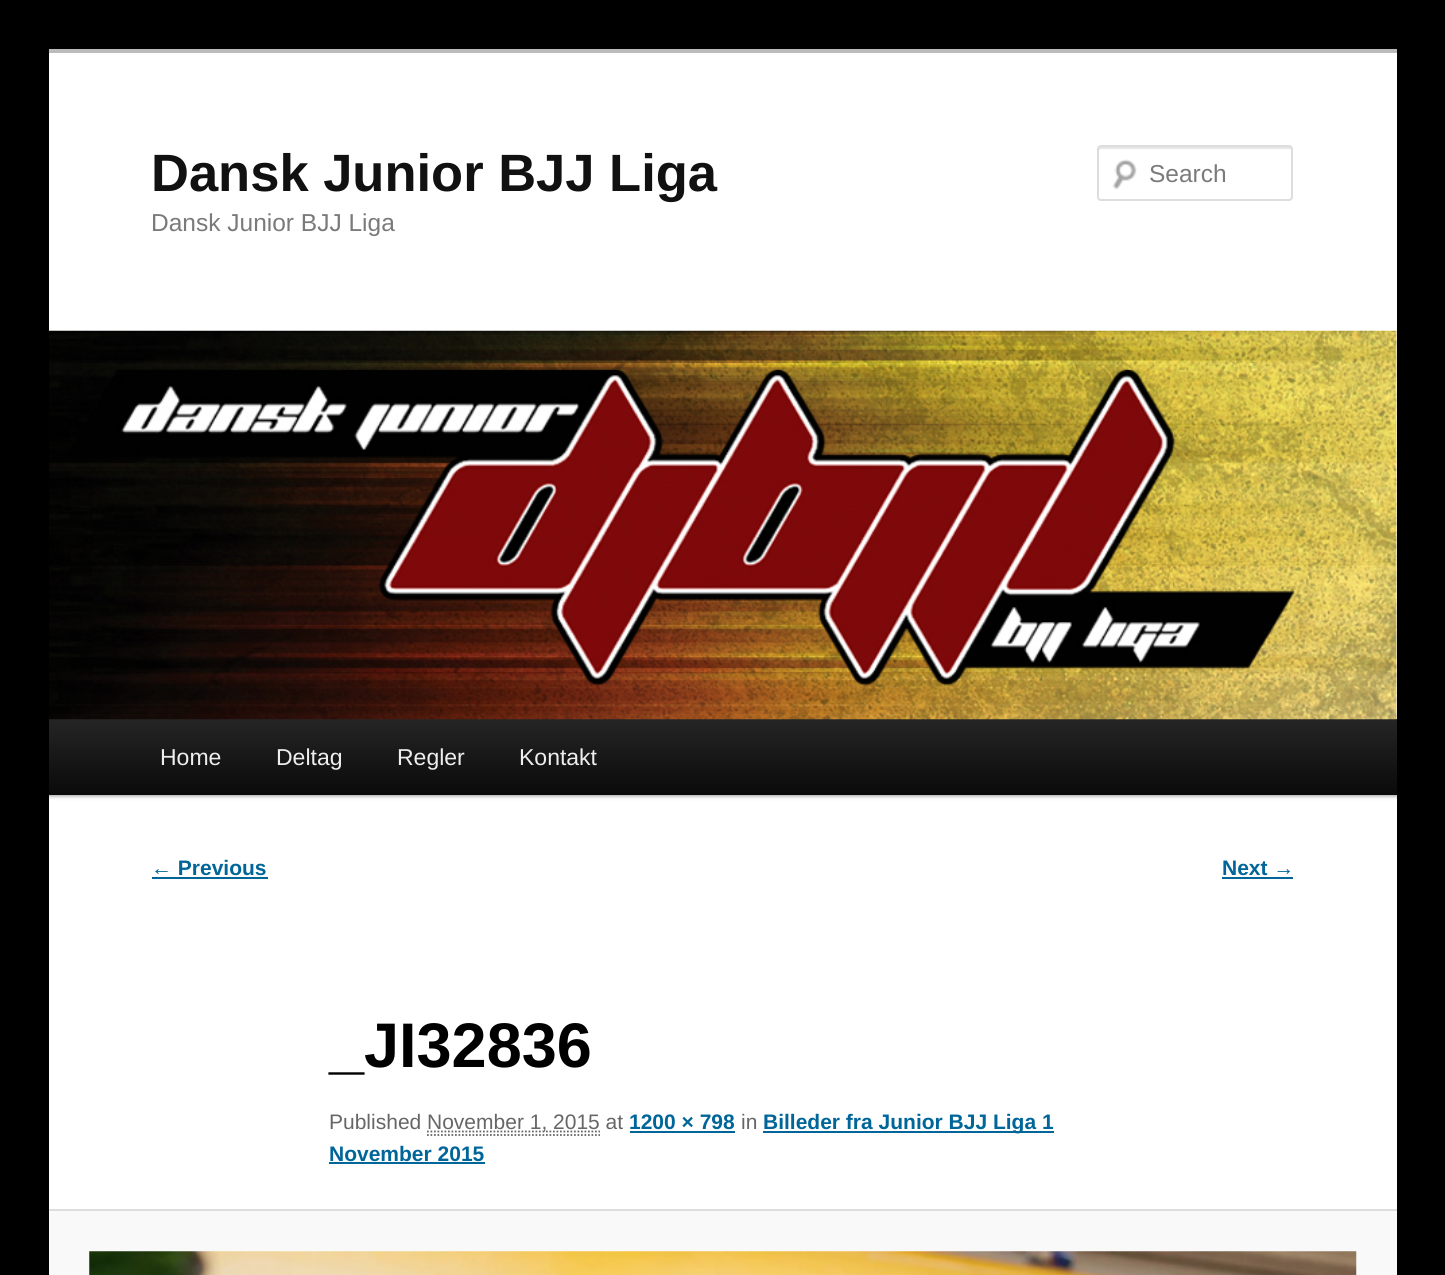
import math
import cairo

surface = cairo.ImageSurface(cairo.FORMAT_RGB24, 1445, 1275)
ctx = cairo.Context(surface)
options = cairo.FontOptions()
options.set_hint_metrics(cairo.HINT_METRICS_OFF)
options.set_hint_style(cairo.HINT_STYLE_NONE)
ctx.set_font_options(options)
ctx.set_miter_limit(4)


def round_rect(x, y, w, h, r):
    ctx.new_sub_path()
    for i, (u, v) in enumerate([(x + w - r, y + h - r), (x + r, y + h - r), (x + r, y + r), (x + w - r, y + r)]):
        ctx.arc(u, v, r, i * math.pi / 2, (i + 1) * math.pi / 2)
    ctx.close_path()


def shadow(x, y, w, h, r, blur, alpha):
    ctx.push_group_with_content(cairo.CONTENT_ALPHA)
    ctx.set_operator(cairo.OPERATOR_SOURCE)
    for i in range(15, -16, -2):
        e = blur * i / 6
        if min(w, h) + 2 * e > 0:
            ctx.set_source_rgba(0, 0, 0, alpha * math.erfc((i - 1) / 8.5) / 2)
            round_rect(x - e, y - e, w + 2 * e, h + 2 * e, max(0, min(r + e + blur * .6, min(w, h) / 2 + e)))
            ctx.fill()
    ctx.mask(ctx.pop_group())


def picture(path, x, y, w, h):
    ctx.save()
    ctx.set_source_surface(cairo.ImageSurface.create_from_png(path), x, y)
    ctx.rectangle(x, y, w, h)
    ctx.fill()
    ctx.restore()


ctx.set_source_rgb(0, 0, 0)
ctx.paint()
ctx.set_source_rgb(1, 1, 1)
ctx.rectangle(49, 53, 1348, 1156)
ctx.fill()
ctx.set_source_rgb(0.733, 0.733, 0.733)
ctx.rectangle(49, 49, 1348, 4)
ctx.fill()
ctx.select_font_face("Liberation Sans", cairo.FONT_SLANT_NORMAL, cairo.FONT_WEIGHT_BOLD)
ctx.set_font_size(52.5)
ctx.set_source_rgb(0.067, 0.067, 0.067)
ctx.move_to(151, 191)
ctx.show_text("Dansk Junior BJJ Liga")
ctx.select_font_face("Liberation Sans")
ctx.set_font_size(24.5)
ctx.set_source_rgb(0.478, 0.478, 0.478)
ctx.move_to(151, 231)
ctx.show_text("Dansk Junior BJJ Liga")
picture("img1.png", 1112, 159, 25, 31)
ctx.set_source_rgb(0.902, 0.902, 0.902)
ctx.new_path()
ctx.move_to(1101, 149)
ctx.line_to(1290, 149)
ctx.curve_to(1291, 149, 1292, 150, 1292, 150)
ctx.line_to(1292, 149)
ctx.curve_to(1292, 148, 1291, 147, 1290, 147)
ctx.line_to(1101, 147)
ctx.curve_to(1100, 147, 1099, 148, 1099, 149)
ctx.line_to(1099, 150)
ctx.close_path()
ctx.fill()
round_rect(1098, 146, 194, 54, 3)
ctx.set_source_rgb(0.867, 0.867, 0.867)
ctx.stroke()
ctx.set_source_rgb(0.478, 0.478, 0.478)
ctx.move_to(1149, 182)
ctx.show_text("Search")
ctx.set_source_rgb(0, 0, 0)
shadow(49, 721, 1348, 75, 0, 2, 0.4)
gradient = cairo.LinearGradient(723, 719, 723, 795)
gradient.add_color_stop_rgba(0, 0.145, 0.145, 0.145, 1)
gradient.add_color_stop_rgba(1, 0.039, 0.039, 0.039, 1)
ctx.set_source(gradient)
ctx.rectangle(49, 719, 1348, 76)
ctx.fill()
picture("img2.png", 49, 330, 1348, 390)
ctx.set_font_size(23)
ctx.set_source_rgb(0.933, 0.933, 0.933)
ctx.move_to(160, 765)
ctx.show_text("Home")
ctx.move_to(276, 765)
ctx.show_text("Deltag")
ctx.move_to(397, 765)
ctx.show_text("Regler")
ctx.move_to(519, 765)
ctx.show_text("Kontakt")
ctx.select_font_face("Liberation Sans", cairo.FONT_SLANT_NORMAL, cairo.FONT_WEIGHT_BOLD)
ctx.set_font_size(21)
ctx.set_source_rgb(0, 0.4, 0.6)
ctx.move_to(151, 875)
ctx.show_text("← Previous")
ctx.rectangle(152, 877, 116, 2)
ctx.fill()
ctx.move_to(1222, 875)
ctx.show_text("Next →")
ctx.rectangle(1222, 877, 71, 2)
ctx.fill()
ctx.set_font_size(63)
ctx.set_source_rgb(0, 0, 0)
ctx.move_to(329, 1067)
ctx.show_text("_JI32836")
ctx.select_font_face("Liberation Sans")
ctx.set_font_size(21)
ctx.set_source_rgb(0.4, 0.4, 0.4)
ctx.move_to(329, 1129)
ctx.show_text("Published")
ctx.new_path()
ctx.move_to(427, 1131.5)
ctx.line_to(600, 1131.5)
ctx.set_line_width(1.8)
ctx.set_dash([1.75, 1.75])
ctx.stroke()
ctx.move_to(427, 1129)
ctx.show_text("November 1, 2015 at")
ctx.new_path()
ctx.move_to(427, 1135)
ctx.line_to(600, 1135)
ctx.stroke()
ctx.select_font_face("Liberation Sans", cairo.FONT_SLANT_NORMAL, cairo.FONT_WEIGHT_BOLD)
ctx.set_source_rgb(0, 0.4, 0.6)
ctx.move_to(629, 1129)
ctx.show_text("1200 × 798")
ctx.rectangle(630, 1131, 105, 2)
ctx.fill()
ctx.select_font_face("Liberation Sans")
ctx.set_source_rgb(0.4, 0.4, 0.4)
ctx.move_to(741, 1129)
ctx.show_text("in")
ctx.set_source_rgb(0, 0.4, 0.6)
ctx.rectangle(763, 1131, 291, 2)
ctx.fill()
ctx.select_font_face("Liberation Sans", cairo.FONT_SLANT_NORMAL, cairo.FONT_WEIGHT_BOLD)
ctx.move_to(763, 1129)
ctx.show_text("Billeder fra Junior BJJ Liga 1")
ctx.move_to(329, 1161)
ctx.show_text("November 2015")
ctx.rectangle(329, 1162, 156, 2)
ctx.fill()
ctx.set_source_rgb(0.976, 0.976, 0.976)
ctx.rectangle(49, 1211, 1348, 64)
ctx.fill()
ctx.set_source_rgb(0.867, 0.867, 0.867)
ctx.rectangle(49, 1209, 1348, 2)
ctx.fill()
picture("img3.png", 89, 1251, 1268, 24)
surface.write_to_png("page.png")
